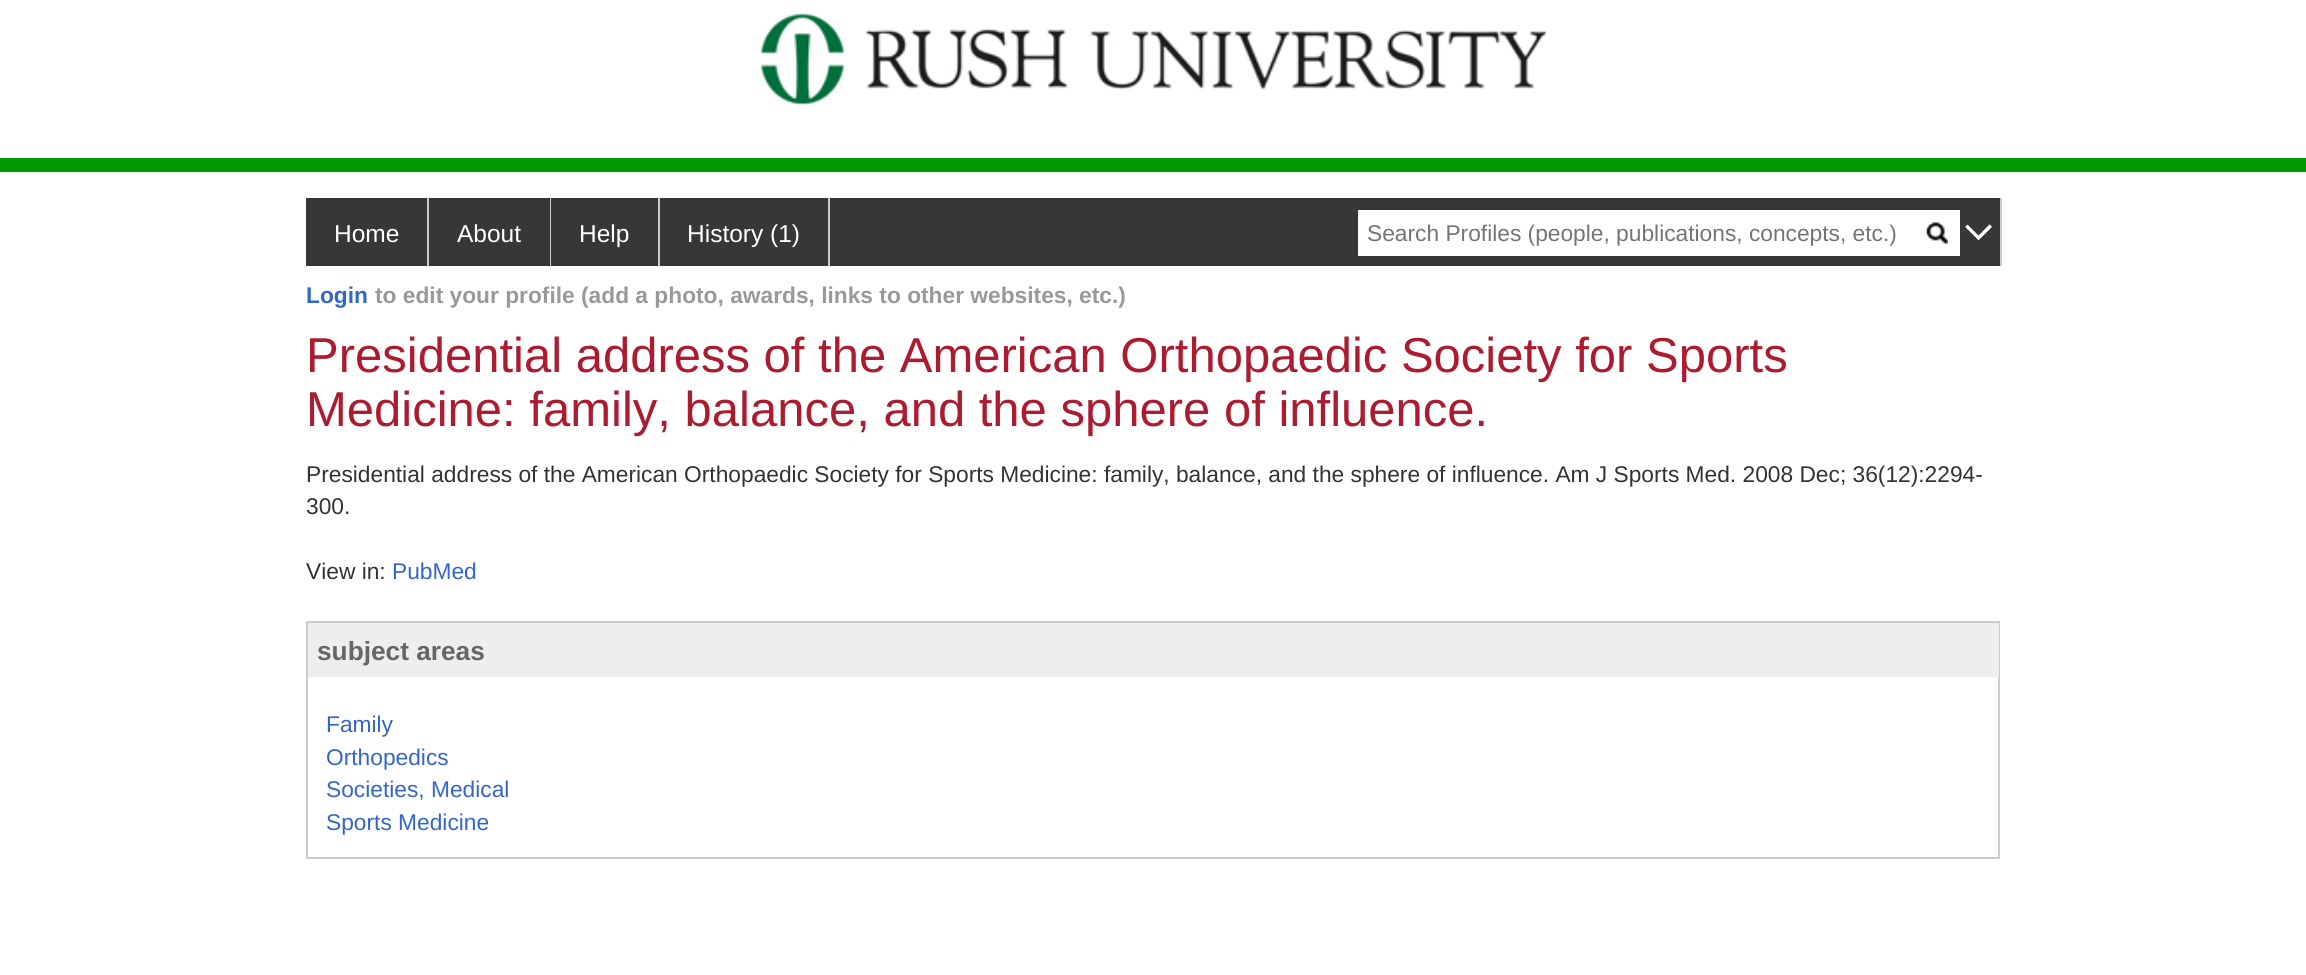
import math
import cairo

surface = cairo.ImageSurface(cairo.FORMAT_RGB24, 2306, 975)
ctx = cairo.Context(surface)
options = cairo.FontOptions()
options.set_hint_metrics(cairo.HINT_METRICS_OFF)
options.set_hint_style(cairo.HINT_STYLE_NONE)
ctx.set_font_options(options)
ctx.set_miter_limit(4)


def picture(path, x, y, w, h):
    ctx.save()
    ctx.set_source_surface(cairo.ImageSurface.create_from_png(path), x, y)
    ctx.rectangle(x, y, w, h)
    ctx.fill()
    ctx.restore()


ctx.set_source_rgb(1, 1, 1)
ctx.paint()
ctx.set_source_rgb(0, 0.6, 0)
ctx.rectangle(0, 158, 2306, 14)
ctx.fill()
picture("img1.png", 760, 13, 787, 93)
ctx.set_source_rgb(0.22, 0.216, 0.216)
ctx.rectangle(306, 198, 1694, 68)
ctx.fill()
ctx.set_source_rgb(0.8, 0.8, 0.8)
ctx.rectangle(427, 198, 2, 68)
ctx.fill()
ctx.select_font_face("Liberation Sans")
ctx.set_font_size(24.5)
ctx.set_source_rgb(1, 1, 1)
ctx.move_to(334, 242)
ctx.show_text("Home")
ctx.set_source_rgb(0.8, 0.8, 0.8)
ctx.rectangle(550, 198, 1, 68)
ctx.fill()
ctx.set_source_rgb(1, 1, 1)
ctx.move_to(457, 242)
ctx.show_text("About")
ctx.set_source_rgb(0.8, 0.8, 0.8)
ctx.rectangle(658, 198, 2, 68)
ctx.fill()
ctx.set_source_rgb(1, 1, 1)
ctx.move_to(579, 242)
ctx.show_text("Help")
ctx.set_source_rgb(0.8, 0.8, 0.8)
ctx.rectangle(828, 198, 2, 68)
ctx.fill()
ctx.set_source_rgb(1, 1, 1)
ctx.move_to(687, 242)
ctx.show_text("History (1)")
ctx.rectangle(1358, 210, 602, 46)
ctx.fill()
ctx.set_font_size(22.75)
ctx.set_source_rgb(0.459, 0.459, 0.459)
ctx.move_to(1367, 241)
ctx.show_text("Search Profiles (people, publications, concepts, etc.)")
picture("img2.png", 1926, 222, 22, 22)
ctx.set_source_rgb(0.8, 0.8, 0.8)
ctx.rectangle(2000, 198, 2, 68)
ctx.fill()
picture("img3.png", 1965, 224, 27, 17)
ctx.select_font_face("Liberation Sans", cairo.FONT_SLANT_NORMAL, cairo.FONT_WEIGHT_BOLD)
ctx.set_source_rgb(0.2, 0.4, 0.8)
ctx.move_to(306, 303)
ctx.show_text("Login")
ctx.set_source_rgb(0.6, 0.6, 0.6)
ctx.move_to(375, 303)
ctx.show_text("to edit your profile (add a photo, awards, links to other websites, etc.)")
ctx.select_font_face("Liberation Sans")
ctx.set_font_size(49)
ctx.set_source_rgb(0.675, 0.106, 0.188)
ctx.move_to(306, 372)
ctx.show_text("Presidential address of the American Orthopaedic Society for Sports")
ctx.move_to(306, 426)
ctx.show_text("Medicine: family, balance, and the sphere of influence.")
ctx.set_font_size(22.75)
ctx.set_source_rgb(0.2, 0.2, 0.2)
ctx.move_to(306, 482)
ctx.show_text("Presidential address of the American Orthopaedic Society for Sports Medicine: family, balance, and the sphere of influence. Am J Sports Med. 2008 Dec; 36(12):2294-")
ctx.move_to(306, 514)
ctx.show_text("300.")
ctx.move_to(306, 579)
ctx.show_text("View in:")
ctx.set_source_rgb(0.2, 0.4, 0.8)
ctx.move_to(392, 579)
ctx.show_text("PubMed")
ctx.rectangle(307, 622, 1692, 236)
ctx.set_source_rgb(0.8, 0.8, 0.8)
ctx.stroke()
ctx.set_source_rgb(0.933, 0.933, 0.933)
ctx.rectangle(308, 623, 1691, 54)
ctx.fill()
ctx.select_font_face("Liberation Sans", cairo.FONT_SLANT_NORMAL, cairo.FONT_WEIGHT_BOLD)
ctx.set_font_size(26.25)
ctx.set_source_rgb(0.4, 0.4, 0.4)
ctx.move_to(317, 660)
ctx.show_text("subject areas")
ctx.select_font_face("Liberation Sans")
ctx.set_font_size(22.75)
ctx.set_source_rgb(0.2, 0.4, 0.8)
ctx.move_to(326, 732)
ctx.show_text("Family")
ctx.move_to(326, 765)
ctx.show_text("Orthopedics")
ctx.move_to(326, 797)
ctx.show_text("Societies, Medical")
ctx.move_to(326, 830)
ctx.show_text("Sports Medicine")
surface.write_to_png("page.png")
